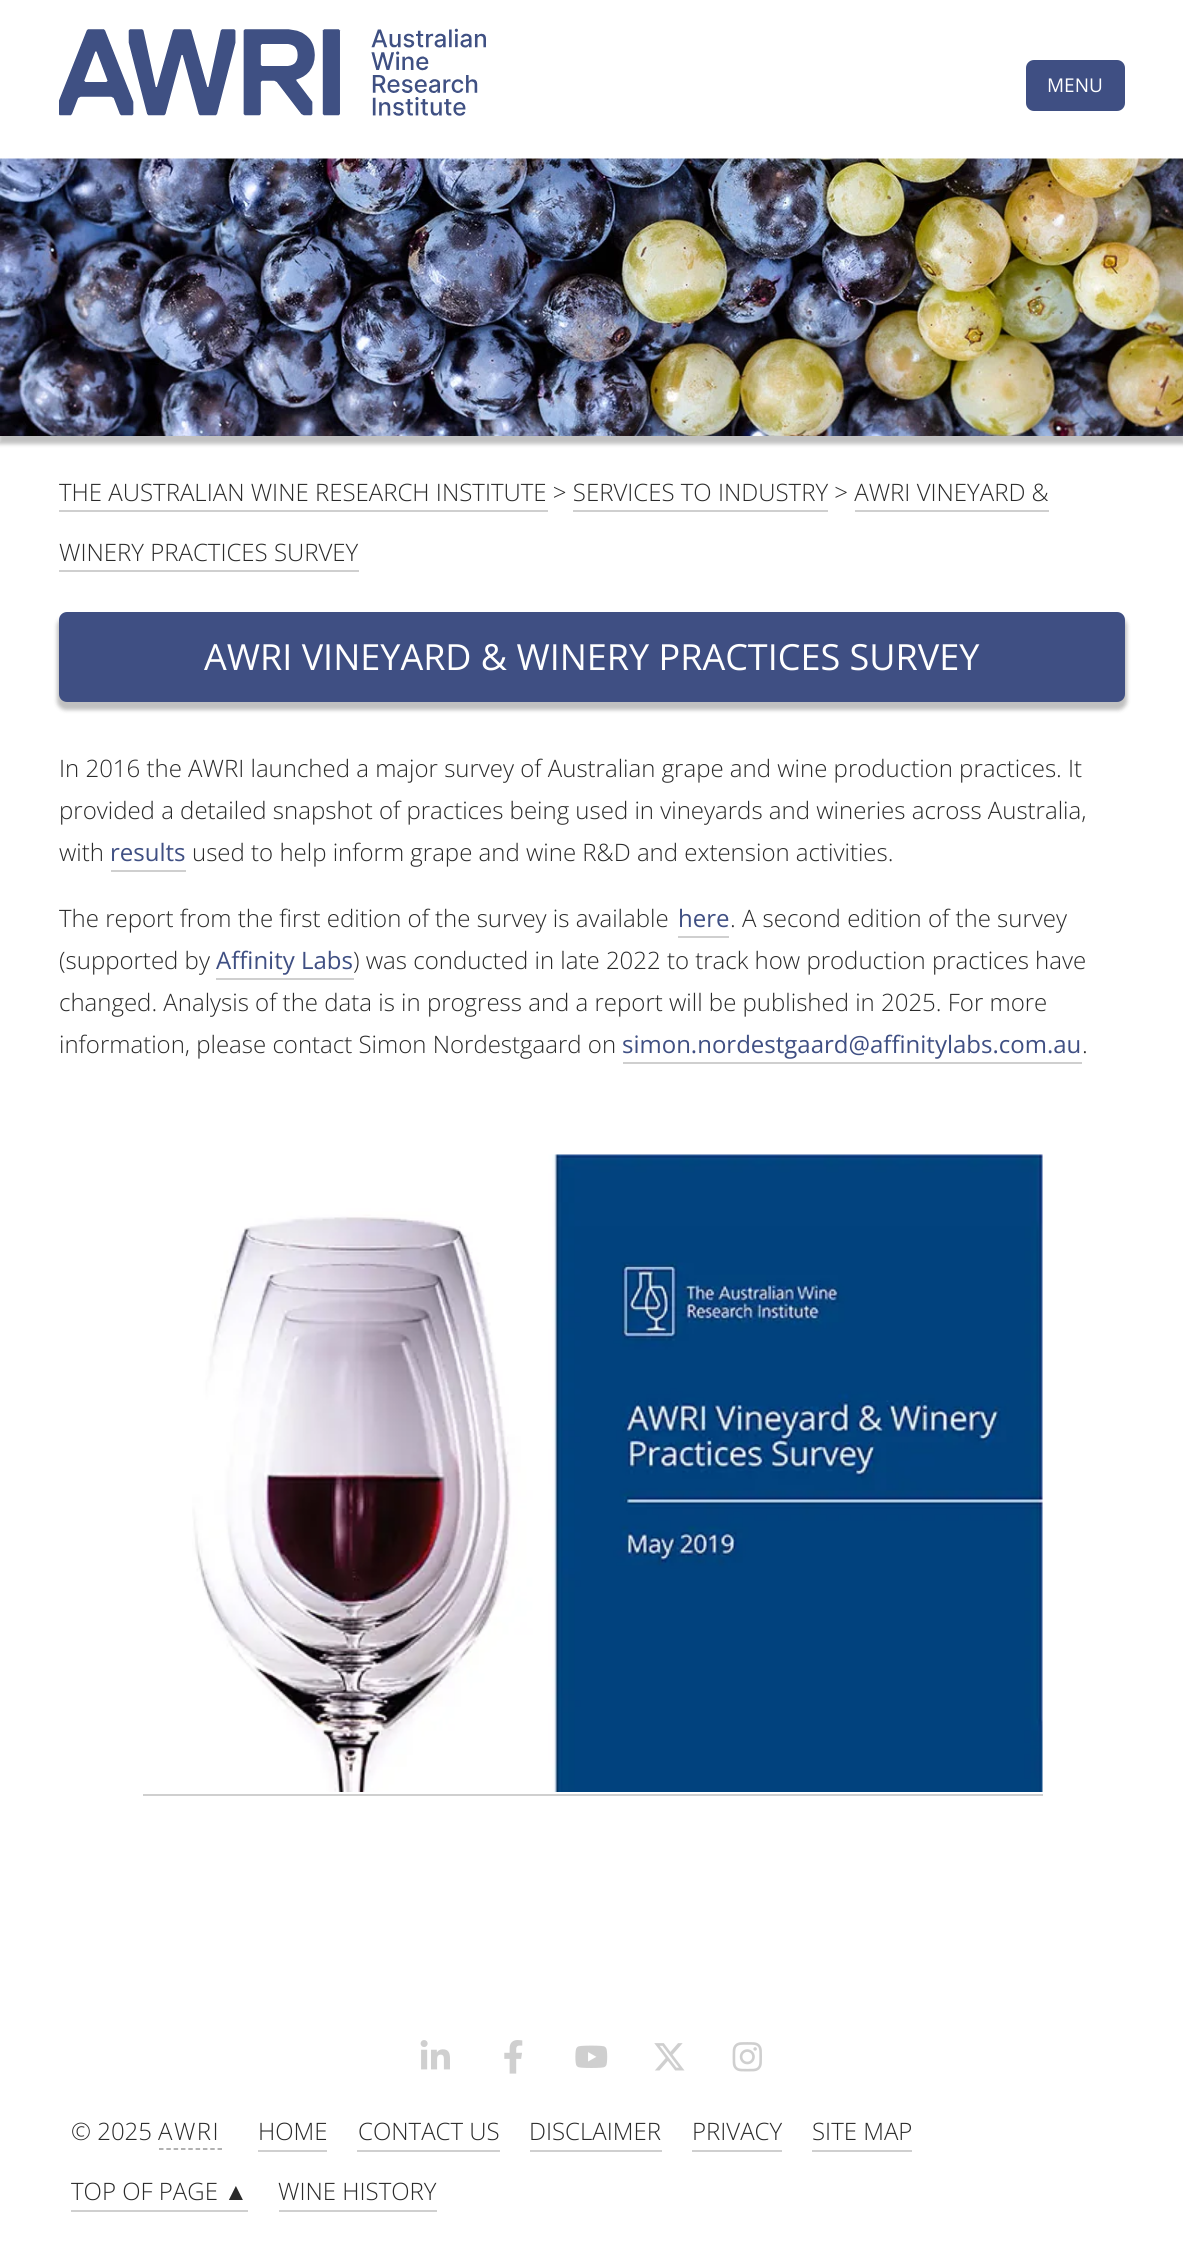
import math
import cairo

surface = cairo.ImageSurface(cairo.FORMAT_RGB24, 1183, 2255)
ctx = cairo.Context(surface)
options = cairo.FontOptions()
options.set_hint_metrics(cairo.HINT_METRICS_OFF)
options.set_hint_style(cairo.HINT_STYLE_NONE)
ctx.set_font_options(options)
ctx.set_miter_limit(4)


def spaced_text(x, y, s, letter, word):
    ctx.move_to(x, y)
    for ch in s:
        ctx.show_text(ch)
        ctx.rel_move_to(letter + word * (ch == ' '), 0)


def round_rect(x, y, w, h, r):
    ctx.new_sub_path()
    for i, (u, v) in enumerate([(x + w - r, y + h - r), (x + r, y + h - r), (x + r, y + r), (x + w - r, y + r)]):
        ctx.arc(u, v, r, i * math.pi / 2, (i + 1) * math.pi / 2)
    ctx.close_path()


def shadow(x, y, w, h, r, blur, alpha):
    ctx.push_group_with_content(cairo.CONTENT_ALPHA)
    ctx.set_operator(cairo.OPERATOR_SOURCE)
    for i in range(15, -16, -2):
        e = blur * i / 6
        if min(w, h) + 2 * e > 0:
            ctx.set_source_rgba(0, 0, 0, alpha * math.erfc((i - 1) / 8.5) / 2)
            round_rect(x - e, y - e, w + 2 * e, h + 2 * e, max(0, min(r + e + blur * .6, min(w, h) / 2 + e)))
            ctx.fill()
    ctx.mask(ctx.pop_group())


def picture(path, x, y, w, h):
    ctx.save()
    ctx.set_source_surface(cairo.ImageSurface.create_from_png(path), x, y)
    ctx.rectangle(x, y, w, h)
    ctx.fill()
    ctx.restore()


ctx.set_source_rgb(1, 1, 1)
ctx.paint()
picture("img1.png", 59, 28, 427, 88)
ctx.set_source_rgb(0.247, 0.31, 0.514)
round_rect(1027, 61, 97, 49, 7)
ctx.fill_preserve()
ctx.stroke()
ctx.select_font_face("Open Sans")
ctx.set_font_size(19)
ctx.set_source_rgb(1, 1, 1)
ctx.move_to(1047, 92)
ctx.show_text("MENU")
ctx.set_source_rgb(0, 0, 0)
shadow(-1, 164, 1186, 280, 0, 2, 0.25)
picture("img2.png", 0, 158, 1183, 278)
ctx.select_font_face("Open Sans Light")
ctx.set_font_size(24)
ctx.set_source_rgb(0.165, 0.165, 0.165)
ctx.move_to(59, 501)
ctx.show_text("THE AUSTRALIAN WINE RESEARCH INSTITUTE > SERVICES TO INDUSTRY > AWRI VINEYARD &")
ctx.set_source_rgb(0.812, 0.812, 0.812)
ctx.rectangle(59, 510, 489, 2)
ctx.fill()
ctx.rectangle(573, 510, 255, 2)
ctx.fill()
ctx.set_source_rgb(0.165, 0.165, 0.165)
ctx.move_to(59, 561)
ctx.show_text("WINERY PRACTICES SURVEY")
ctx.set_source_rgb(0.812, 0.812, 0.812)
ctx.rectangle(855, 510, 194, 2)
ctx.fill()
ctx.rectangle(59, 570, 300, 2)
ctx.fill()
ctx.set_source_rgb(0, 0, 0)
shadow(57, 617, 1070, 93, 9, 2, 0.25)
ctx.set_source_rgb(0.247, 0.31, 0.514)
round_rect(59, 612, 1066, 90, 8)
ctx.fill()
ctx.select_font_face("Open Sans")
ctx.set_font_size(36)
ctx.set_source_rgb(1, 1, 1)
ctx.move_to(204, 670)
ctx.show_text("AWRI VINEYARD & WINERY PRACTICES SURVEY")
ctx.select_font_face("Open Sans Light")
ctx.set_font_size(24)
ctx.set_source_rgb(0.165, 0.165, 0.165)
ctx.move_to(59, 777)
ctx.show_text("In 2016 the AWRI launched a major survey of Australian grape and wine production practices. It")
ctx.move_to(59, 819)
ctx.show_text("provided a detailed snapshot of practices being used in vineyards and wineries across Australia,")
ctx.move_to(59, 861)
ctx.show_text("with")
ctx.select_font_face("Open Sans")
ctx.set_source_rgb(0.247, 0.31, 0.514)
ctx.move_to(110, 861)
ctx.show_text("results")
ctx.set_source_rgb(0.812, 0.812, 0.812)
ctx.rectangle(111, 870, 75, 2)
ctx.fill()
ctx.select_font_face("Open Sans Light")
ctx.set_source_rgb(0.165, 0.165, 0.165)
ctx.move_to(192, 861)
ctx.show_text("used to help inform grape and wine R&D and extension activities.")
ctx.move_to(59, 927)
ctx.show_text("The report from the first edition of the survey is available")
ctx.select_font_face("Open Sans")
ctx.set_source_rgb(0.247, 0.31, 0.514)
ctx.move_to(678, 927)
ctx.show_text("here")
ctx.set_source_rgb(0.812, 0.812, 0.812)
ctx.rectangle(678, 936, 51, 2)
ctx.fill()
ctx.select_font_face("Open Sans Light")
ctx.set_source_rgb(0.165, 0.165, 0.165)
ctx.move_to(730, 927)
ctx.show_text(". A second edition of the survey")
ctx.move_to(59, 969)
ctx.show_text("(supported by")
ctx.select_font_face("Open Sans")
ctx.set_source_rgb(0.247, 0.31, 0.514)
ctx.move_to(216, 969)
ctx.show_text("Affinity Labs")
ctx.set_source_rgb(0.812, 0.812, 0.812)
ctx.rectangle(216, 978, 138, 2)
ctx.fill()
ctx.select_font_face("Open Sans Light")
ctx.set_source_rgb(0.165, 0.165, 0.165)
ctx.move_to(353, 969)
ctx.show_text(") was conducted in late 2022 to track how production practices have")
ctx.move_to(59, 1011)
ctx.show_text("changed. Analysis of the data is in progress and a report will be published in 2025. For more")
ctx.move_to(59, 1053)
ctx.show_text("information, please contact Simon Nordestgaard on")
ctx.select_font_face("Open Sans")
ctx.set_source_rgb(0.247, 0.31, 0.514)
ctx.move_to(622, 1053)
ctx.show_text("simon.nordestgaard@affinitylabs.com.au")
ctx.select_font_face("Open Sans Light")
ctx.set_source_rgb(0.165, 0.165, 0.165)
ctx.move_to(1082, 1053)
ctx.show_text(".")
ctx.set_source_rgb(0.812, 0.812, 0.812)
ctx.rectangle(623, 1062, 459, 2)
ctx.fill()
ctx.rectangle(143, 1794, 900, 2)
ctx.fill()
picture("img3.png", 192, 1154, 851, 638)
picture("img4.png", 420, 2040, 30, 30)
picture("img5.png", 504, 2040, 19, 34)
picture("img6.png", 575, 2045, 33, 23)
picture("img7.png", 654, 2043, 31, 28)
picture("img8.png", 732, 2042, 30, 30)
ctx.set_source_rgb(0.165, 0.165, 0.165)
ctx.move_to(71, 2140)
ctx.show_text("© 2025")
spaced_text(158, 2140, "AWRI", 1.5, 0)
ctx.new_path()
ctx.move_to(159, 2149)
ctx.line_to(222, 2149)
ctx.set_source_rgb(0.6, 0.6, 0.6)
ctx.set_line_width(1.5)
ctx.set_dash([4.5, 2.82])
ctx.stroke()
ctx.set_source_rgb(0.165, 0.165, 0.165)
ctx.move_to(258, 2140)
ctx.show_text("HOME")
ctx.set_source_rgb(0.812, 0.812, 0.812)
ctx.rectangle(258, 2150, 69, 2)
ctx.fill()
ctx.set_source_rgb(0.165, 0.165, 0.165)
ctx.move_to(358, 2140)
ctx.show_text("CONTACT US")
ctx.set_source_rgb(0.812, 0.812, 0.812)
ctx.rectangle(357, 2150, 143, 2)
ctx.fill()
ctx.set_source_rgb(0.165, 0.165, 0.165)
ctx.move_to(529, 2140)
ctx.show_text("DISCLAIMER")
ctx.set_source_rgb(0.812, 0.812, 0.812)
ctx.rectangle(530, 2150, 132, 2)
ctx.fill()
ctx.set_source_rgb(0.165, 0.165, 0.165)
ctx.move_to(692, 2140)
ctx.show_text("PRIVACY")
ctx.set_source_rgb(0.812, 0.812, 0.812)
ctx.rectangle(692, 2150, 90, 2)
ctx.fill()
ctx.set_source_rgb(0.165, 0.165, 0.165)
ctx.move_to(812, 2140)
ctx.show_text("SITE MAP")
ctx.set_source_rgb(0.812, 0.812, 0.812)
ctx.rectangle(812, 2150, 100, 2)
ctx.fill()
ctx.set_source_rgb(0.165, 0.165, 0.165)
ctx.move_to(71, 2200)
ctx.show_text("TOP OF PAGE")
ctx.select_font_face("Liberation Sans")
ctx.move_to(224, 2200)
ctx.show_text("▲")
ctx.set_source_rgb(0.812, 0.812, 0.812)
ctx.rectangle(71, 2210, 177, 2)
ctx.fill()
ctx.select_font_face("Open Sans Light")
ctx.set_source_rgb(0.165, 0.165, 0.165)
ctx.move_to(278, 2200)
ctx.show_text("WINE HISTORY")
ctx.set_source_rgb(0.812, 0.812, 0.812)
ctx.rectangle(279, 2210, 158, 2)
ctx.fill()
surface.write_to_png("page.png")
